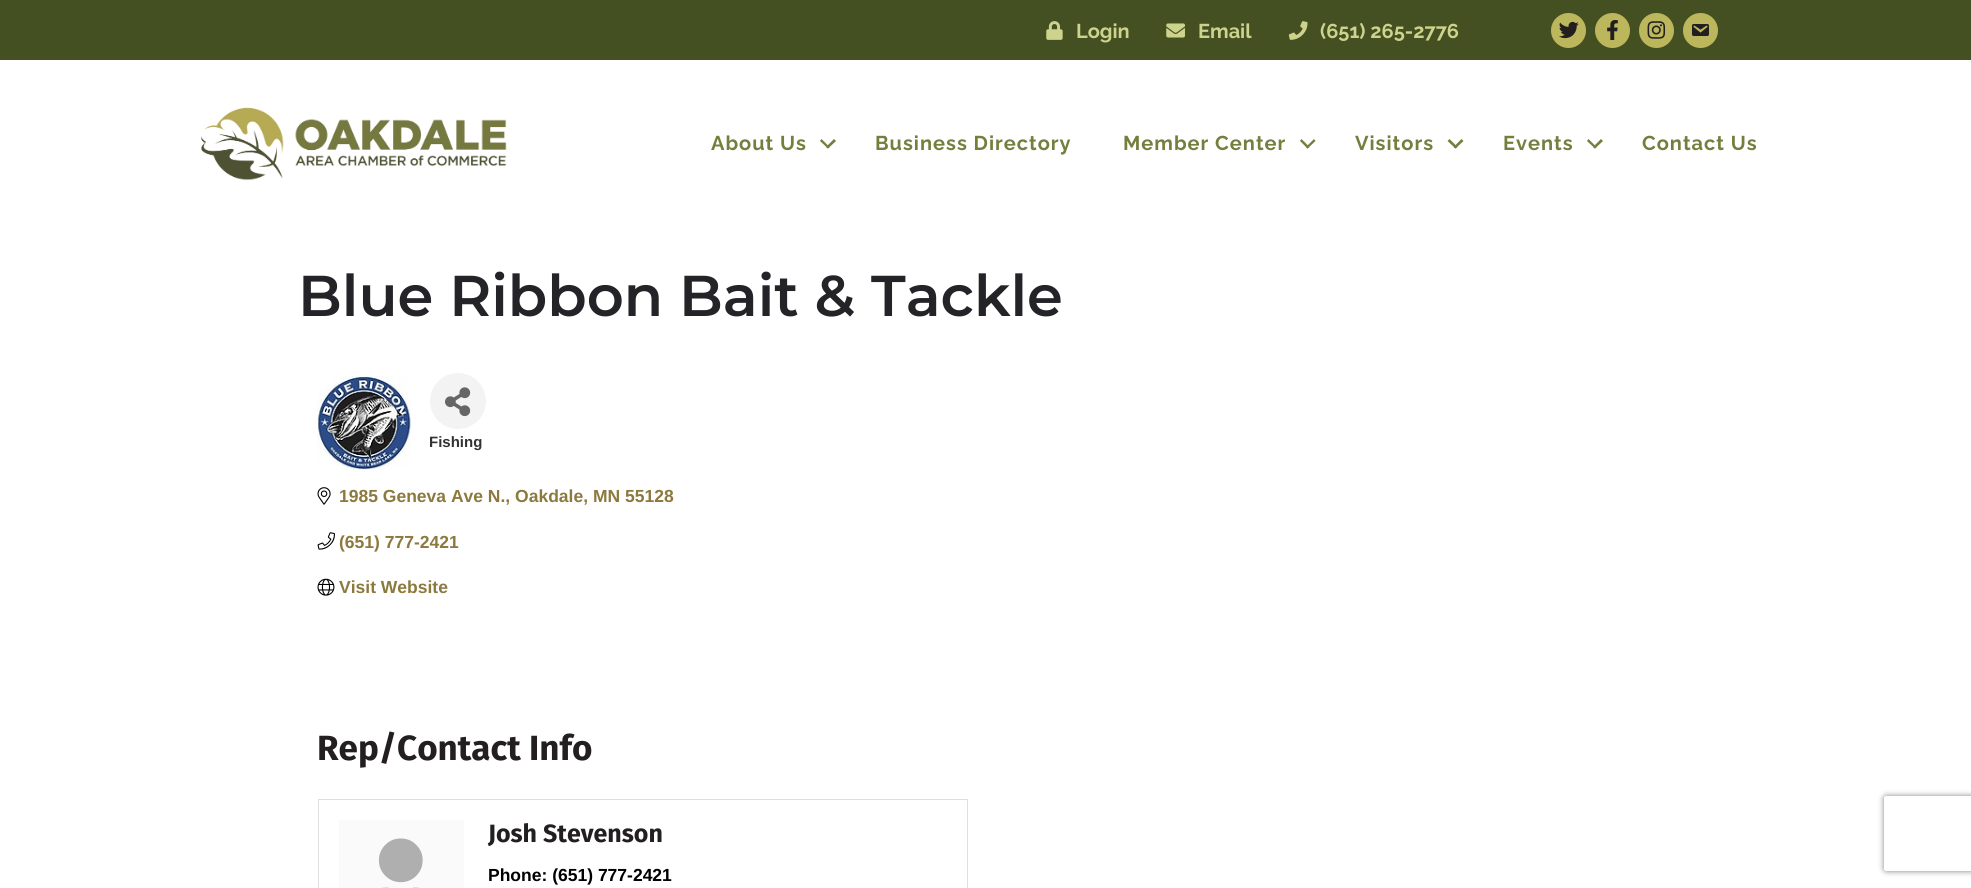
import math
import cairo

surface = cairo.ImageSurface(cairo.FORMAT_RGB24, 1971, 888)
ctx = cairo.Context(surface)
options = cairo.FontOptions()
options.set_hint_metrics(cairo.HINT_METRICS_OFF)
options.set_hint_style(cairo.HINT_STYLE_NONE)
ctx.set_font_options(options)
ctx.set_miter_limit(4)


def spaced_text(x, y, s, letter, word):
    ctx.move_to(x, y)
    for ch in s:
        ctx.show_text(ch)
        ctx.rel_move_to(letter + word * (ch == ' '), 0)


def round_rect(x, y, w, h, r):
    ctx.new_sub_path()
    for i, (u, v) in enumerate([(x + w - r, y + h - r), (x + r, y + h - r), (x + r, y + r), (x + w - r, y + r)]):
        ctx.arc(u, v, r, i * math.pi / 2, (i + 1) * math.pi / 2)
    ctx.close_path()


def shadow(x, y, w, h, r, blur, alpha):
    ctx.push_group_with_content(cairo.CONTENT_ALPHA)
    ctx.set_operator(cairo.OPERATOR_SOURCE)
    for i in range(15, -16, -2):
        e = blur * i / 6
        if min(w, h) + 2 * e > 0:
            ctx.set_source_rgba(0, 0, 0, alpha * math.erfc((i - 1) / 8.5) / 2)
            round_rect(x - e, y - e, w + 2 * e, h + 2 * e, max(0, min(r + e + blur * .6, min(w, h) / 2 + e)))
            ctx.fill()
    ctx.mask(ctx.pop_group())


def picture(path, x, y, w, h):
    ctx.save()
    ctx.set_source_surface(cairo.ImageSurface.create_from_png(path), x, y)
    ctx.rectangle(x, y, w, h)
    ctx.fill()
    ctx.restore()


ctx.set_source_rgb(0.267, 0.314, 0.129)
ctx.paint()
picture("img1.png", 1046, 21, 17, 19)
ctx.select_font_face("Raleway", cairo.FONT_SLANT_NORMAL, cairo.FONT_WEIGHT_BOLD)
ctx.set_font_size(20)
ctx.set_source_rgb(0.804, 0.824, 0.553)
ctx.move_to(1076, 38)
ctx.show_text("Login")
picture("img2.png", 1166, 23, 19, 15)
ctx.move_to(1198, 38)
ctx.show_text("Email")
picture("img3.png", 1288, 21, 20, 19)
ctx.move_to(1320, 38)
ctx.show_text("(651) 265-2776")
ctx.set_source_rgb(0.737, 0.718, 0.365)
ctx.new_path()
ctx.arc(1568.5, 30.5, 17.5, 0, 2 * math.pi)
ctx.fill()
picture("img4.png", 1559, 21, 20, 18)
ctx.arc(1612.5, 30.5, 17.5, 0, 2 * math.pi)
ctx.fill()
picture("img5.png", 1607, 20, 11, 20)
ctx.arc(1656.5, 30.5, 17.5, 0, 2 * math.pi)
ctx.fill()
picture("img6.png", 1647, 21, 19, 18)
ctx.arc(1700.5, 30.5, 17.5, 0, 2 * math.pi)
ctx.fill()
picture("img7.png", 1692, 24, 17, 12)
ctx.set_source_rgb(1, 1, 1)
ctx.rectangle(0, 60, 1971, 828)
ctx.fill()
picture("img8.png", 201, 107, 306, 74)
ctx.set_source_rgb(0.455, 0.498, 0.243)
spaced_text(711, 150, "About Us", 1, 0)
ctx.new_path()
ctx.move_to(834, 139)
ctx.line_to(836, 141)
ctx.line_to(828, 148.5)
ctx.line_to(826, 147)
ctx.close_path()
ctx.fill()
ctx.new_path()
ctx.move_to(821.5, 139)
ctx.line_to(829.5, 147)
ctx.line_to(828, 148.5)
ctx.line_to(820, 141)
ctx.close_path()
ctx.fill()
spaced_text(875, 150, "Business Directory", 1, 0)
spaced_text(1123, 150, "Member Center", 1, 0)
ctx.new_path()
ctx.move_to(1314, 139)
ctx.line_to(1315.5, 141)
ctx.line_to(1307.5, 148.5)
ctx.line_to(1306, 147)
ctx.close_path()
ctx.fill()
ctx.new_path()
ctx.move_to(1301.5, 139)
ctx.line_to(1309.5, 147)
ctx.line_to(1307.5, 148.5)
ctx.line_to(1300, 141)
ctx.close_path()
ctx.fill()
spaced_text(1355, 150, "Visitors", 1, 0)
ctx.new_path()
ctx.move_to(1461.5, 139)
ctx.line_to(1463.5, 141)
ctx.line_to(1455.5, 148.5)
ctx.line_to(1453.5, 147)
ctx.close_path()
ctx.fill()
ctx.new_path()
ctx.move_to(1449.5, 139)
ctx.line_to(1457.5, 147)
ctx.line_to(1455.5, 148.5)
ctx.line_to(1447.5, 141)
ctx.close_path()
ctx.fill()
spaced_text(1503, 150, "Events", 1, 0)
ctx.new_path()
ctx.move_to(1601, 139)
ctx.line_to(1603, 141)
ctx.line_to(1595, 148.5)
ctx.line_to(1593, 147)
ctx.close_path()
ctx.fill()
ctx.new_path()
ctx.move_to(1588.5, 139)
ctx.line_to(1596.5, 147)
ctx.line_to(1595, 148.5)
ctx.line_to(1587, 141)
ctx.close_path()
ctx.fill()
spaced_text(1642, 150, "Contact Us", 1, 0)
ctx.select_font_face("Montserrat Thin")
ctx.set_font_size(57.5)
ctx.set_source_rgb(0.141, 0.137, 0.157)
ctx.move_to(298, 316)
ctx.show_text("Blue Ribbon Bait & Tackle")
picture("img9.png", 317, 376, 94, 94)
ctx.set_source_rgb(0.953, 0.953, 0.953)
ctx.arc(458, 401, 28, 0, 2 * math.pi)
ctx.fill()
picture("img10.png", 445, 387, 26, 30)
ctx.select_font_face("Liberation Sans", cairo.FONT_SLANT_NORMAL, cairo.FONT_WEIGHT_BOLD)
ctx.set_font_size(15)
ctx.set_source_rgb(0.2, 0.2, 0.2)
ctx.move_to(429, 447)
ctx.show_text("Fishing")
picture("img11.png", 317, 487, 14, 18)
ctx.set_font_size(17.5)
ctx.set_source_rgb(0.549, 0.475, 0.239)
ctx.move_to(339, 502)
ctx.show_text("1985 Geneva Ave N., Oakdale, MN 55128")
picture("img12.png", 317, 532, 18, 18)
ctx.move_to(339, 548)
ctx.show_text("(651) 777-2421")
picture("img13.png", 317, 578, 18, 18)
ctx.move_to(339, 593)
ctx.show_text("Visit Website")
ctx.select_font_face("Fira Sans", cairo.FONT_SLANT_NORMAL, cairo.FONT_WEIGHT_BOLD)
ctx.set_font_size(35)
ctx.set_source_rgb(0.137, 0.122, 0.125)
ctx.move_to(317, 760)
ctx.show_text("Rep/Contact Info")
ctx.rectangle(318.5, 799.5, 649, 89)
ctx.set_source_rgb(0.875, 0.875, 0.875)
ctx.set_line_width(1)
ctx.stroke()
ctx.set_source_rgb(0.98, 0.98, 0.98)
ctx.rectangle(339, 820, 125, 68)
ctx.fill()
picture("img14.png", 378, 838, 45, 50)
ctx.set_font_size(25)
ctx.set_source_rgb(0.137, 0.122, 0.125)
ctx.move_to(488, 842)
ctx.show_text("Josh Stevenson")
ctx.select_font_face("Liberation Sans", cairo.FONT_SLANT_NORMAL, cairo.FONT_WEIGHT_BOLD)
ctx.set_font_size(17.5)
ctx.set_source_rgb(0, 0, 0)
ctx.move_to(488, 881)
ctx.show_text("Phone: (651) 777-2421")
ctx.save()
ctx.set_fill_rule(cairo.FILL_RULE_EVEN_ODD)
ctx.new_path()
ctx.move_to(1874, 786)
ctx.line_to(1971, 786)
ctx.line_to(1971, 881)
ctx.line_to(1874, 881)
ctx.close_path()
ctx.move_to(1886.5, 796)
ctx.line_to(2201.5, 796)
ctx.curve_to(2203, 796, 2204, 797, 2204, 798.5)
ctx.line_to(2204, 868.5)
ctx.curve_to(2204, 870, 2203, 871, 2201.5, 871)
ctx.line_to(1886.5, 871)
ctx.curve_to(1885, 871, 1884, 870, 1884, 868.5)
ctx.line_to(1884, 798.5)
ctx.curve_to(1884, 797, 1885, 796, 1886.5, 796)
ctx.close_path()
ctx.clip()
ctx.set_source_rgb(0.502, 0.502, 0.502)
shadow(1884, 796, 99, 75, 2.5, 3, 1)
ctx.restore()
surface.write_to_png("page.png")
